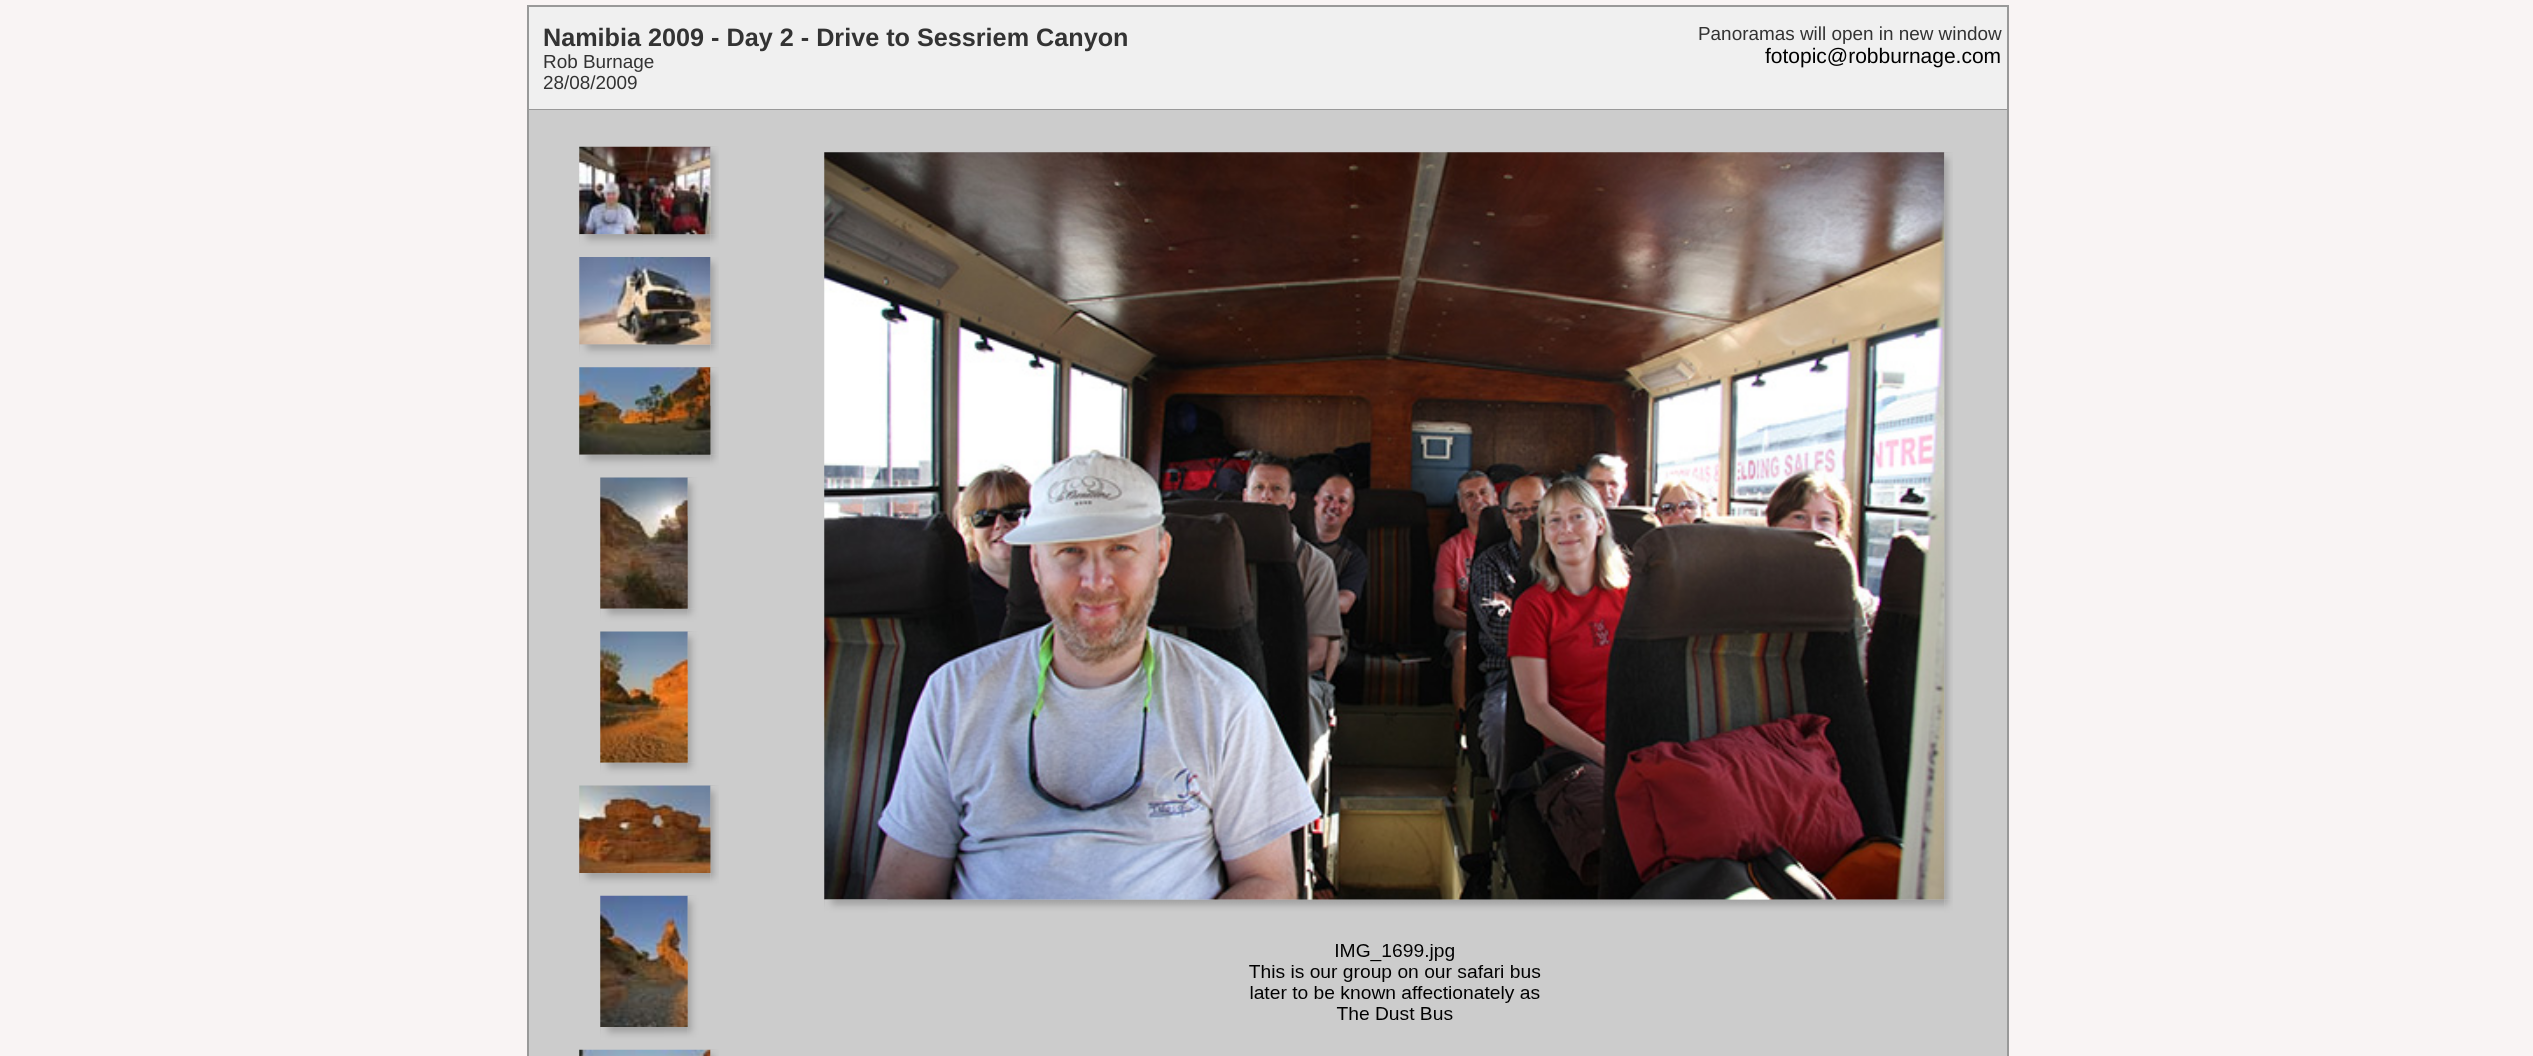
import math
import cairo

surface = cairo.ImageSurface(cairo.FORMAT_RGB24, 2533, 1056)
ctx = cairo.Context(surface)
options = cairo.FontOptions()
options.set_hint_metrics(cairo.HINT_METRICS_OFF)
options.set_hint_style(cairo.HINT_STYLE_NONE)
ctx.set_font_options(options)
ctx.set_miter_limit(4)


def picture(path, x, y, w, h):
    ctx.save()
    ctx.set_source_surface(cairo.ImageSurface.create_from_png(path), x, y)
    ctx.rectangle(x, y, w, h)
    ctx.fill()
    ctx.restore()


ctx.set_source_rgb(0.976, 0.957, 0.957)
ctx.paint()
ctx.rectangle(528, 6, 1480, 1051)
ctx.set_source_rgb(0.6, 0.6, 0.6)
ctx.stroke()
ctx.set_source_rgb(0.941, 0.941, 0.941)
ctx.rectangle(529, 7, 1478, 102)
ctx.fill()
ctx.select_font_face("Liberation Sans", cairo.FONT_SLANT_NORMAL, cairo.FONT_WEIGHT_BOLD)
ctx.set_font_size(25.2)
ctx.set_source_rgb(0.2, 0.2, 0.2)
ctx.move_to(543, 46)
ctx.show_text("Namibia 2009 - Day 2 - Drive to Sessriem Canyon")
ctx.select_font_face("Liberation Sans")
ctx.set_font_size(18.9)
ctx.move_to(543, 68)
ctx.show_text("Rob Burnage")
ctx.move_to(543, 89)
ctx.show_text("28/08/2009")
ctx.move_to(1698, 40)
ctx.show_text("Panoramas will open in new window")
ctx.set_font_size(21)
ctx.set_source_rgb(0, 0, 0)
ctx.move_to(1765, 63)
ctx.show_text("fotopic@robburnage.com")
ctx.set_source_rgb(0.6, 0.6, 0.6)
ctx.rectangle(529, 109, 1478, 1)
ctx.fill()
ctx.set_source_rgb(0.8, 0.8, 0.8)
ctx.rectangle(529, 110, 1478, 946)
ctx.fill()
picture("img1.png", 579, 146, 140, 910)
picture("img2.png", 824, 152, 1129, 868)
surface.write_to_png("page.png")
